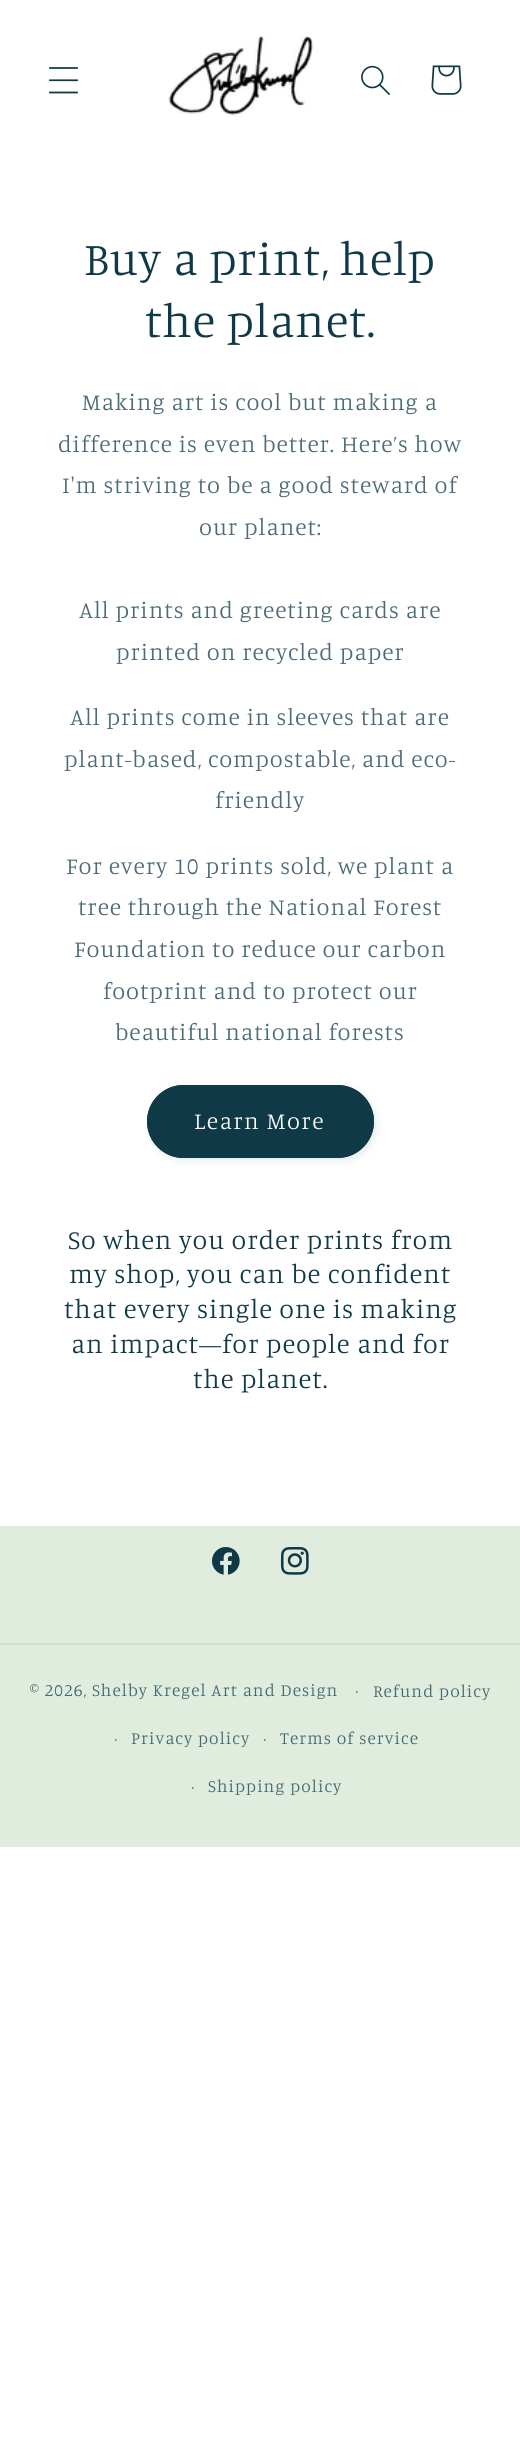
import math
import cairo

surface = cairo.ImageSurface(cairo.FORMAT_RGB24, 520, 2453)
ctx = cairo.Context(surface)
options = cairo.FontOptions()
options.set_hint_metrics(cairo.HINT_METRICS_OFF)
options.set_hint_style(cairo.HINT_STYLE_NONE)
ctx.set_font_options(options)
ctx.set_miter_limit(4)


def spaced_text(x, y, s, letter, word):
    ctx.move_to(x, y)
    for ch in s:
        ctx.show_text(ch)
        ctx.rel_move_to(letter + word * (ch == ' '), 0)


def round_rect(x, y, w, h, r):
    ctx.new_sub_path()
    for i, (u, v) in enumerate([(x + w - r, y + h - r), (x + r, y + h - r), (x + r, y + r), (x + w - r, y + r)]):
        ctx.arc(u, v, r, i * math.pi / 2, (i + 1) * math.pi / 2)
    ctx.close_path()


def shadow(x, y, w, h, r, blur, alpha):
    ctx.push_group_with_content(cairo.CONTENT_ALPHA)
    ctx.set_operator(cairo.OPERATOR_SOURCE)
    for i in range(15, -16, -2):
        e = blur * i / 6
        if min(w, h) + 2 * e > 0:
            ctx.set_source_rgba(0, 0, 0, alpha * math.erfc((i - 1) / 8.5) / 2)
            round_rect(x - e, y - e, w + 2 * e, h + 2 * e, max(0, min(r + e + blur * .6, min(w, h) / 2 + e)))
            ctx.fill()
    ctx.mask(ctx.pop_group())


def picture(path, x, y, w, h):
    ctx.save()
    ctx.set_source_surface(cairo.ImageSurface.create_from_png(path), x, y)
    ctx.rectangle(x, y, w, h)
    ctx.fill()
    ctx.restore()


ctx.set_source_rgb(1, 1, 1)
ctx.paint()
picture("img1.png", 48, 67, 31, 27)
picture("img2.png", 168, 35, 146, 82)
picture("img3.png", 361, 65, 29, 30)
picture("img4.png", 431, 65, 31, 30)
ctx.select_font_face("Manuale Light")
ctx.set_font_size(47.25)
ctx.set_source_rgb(0.063, 0.224, 0.282)
spaced_text(84, 275, "Buy a print, help", 0.95, 0)
spaced_text(145, 337, "the planet.", 0.95, 0)
ctx.set_font_size(23.6)
ctx.set_source_rgb(0.298, 0.42, 0.463)
spaced_text(82, 410, "Making art is cool but making a", 0.95, 0)
spaced_text(58, 452, "difference is even better. Here’s how", 0.95, 0)
spaced_text(62, 493, "I'm striving to be a good steward of", 0.95, 0)
spaced_text(199, 535, "our planet:", 0.95, 0)
spaced_text(79, 618, "All prints and greeting cards are", 0.95, 0)
spaced_text(116, 660, "printed on recycled paper", 0.95, 0)
spaced_text(70, 725, "All prints come in sleeves that are", 0.95, 0)
spaced_text(64, 767, "plant-based, compostable, and eco-", 0.95, 0)
spaced_text(215, 808, "friendly", 0.95, 0)
spaced_text(66, 874, "For every 10 prints sold, we plant a", 0.95, 0)
spaced_text(78, 915, "tree through the National Forest", 0.95, 0)
spaced_text(74, 957, "Foundation to reduce our carbon", 0.95, 0)
spaced_text(103, 999, "footprint and to protect our", 0.95, 0)
spaced_text(115, 1040, "beautiful national forests", 0.95, 0)
ctx.set_source_rgb(0.063, 0.224, 0.282)
shadow(150, 1088, 227, 73, 36.5, 4, 0.1)
ctx.set_source_rgb(0.063, 0.224, 0.282)
round_rect(147, 1085, 227, 73, 36.5)
ctx.fill()
round_rect(148, 1086, 225, 71, 35.5)
ctx.stroke()
ctx.set_source_rgb(0.988, 0.988, 0.988)
spaced_text(194, 1129, "Learn More", 1.5, 0)
ctx.set_font_size(26.75)
ctx.set_source_rgb(0.063, 0.224, 0.282)
spaced_text(68, 1249, "So when you order prints from", 0.95, 0)
spaced_text(69, 1283, "my shop, you can be confident", 0.95, 0)
spaced_text(64, 1318, "that every single one is making", 0.95, 0)
spaced_text(71, 1353, "an impact—for people and for", 0.95, 0)
spaced_text(193, 1388, "the planet.", 0.95, 0)
ctx.set_source_rgb(0.875, 0.922, 0.871)
ctx.rectangle(0, 1526, 520, 321)
ctx.fill()
picture("img5.png", 212, 1547, 28, 28)
picture("img6.png", 280, 1547, 29, 28)
ctx.set_source_rgb(0.808, 0.867, 0.824)
ctx.rectangle(0, 1643, 520, 2)
ctx.fill()
ctx.set_font_size(17.3)
ctx.set_source_rgb(0.267, 0.4, 0.431)
spaced_text(30, 1696, "© 2026, Shelby Kregel Art and Design", 1.1, 0)
ctx.set_font_size(16)
spaced_text(355, 1696, "·", 1.1, 0)
ctx.set_font_size(17.3)
spaced_text(373, 1697, "Refund policy", 1.1, 0)
ctx.set_font_size(16)
spaced_text(114, 1744, "·", 1.1, 0)
ctx.set_font_size(17.3)
spaced_text(131, 1744, "Privacy policy", 1.1, 0)
ctx.set_font_size(16)
spaced_text(263, 1744, "·", 1.1, 0)
ctx.set_font_size(17.3)
spaced_text(280, 1744, "Terms of service", 1.1, 0)
ctx.set_font_size(16)
spaced_text(191, 1792, "·", 1.1, 0)
ctx.set_font_size(17.3)
spaced_text(208, 1792, "Shipping policy", 1.1, 0)
surface.write_to_png("page.png")
